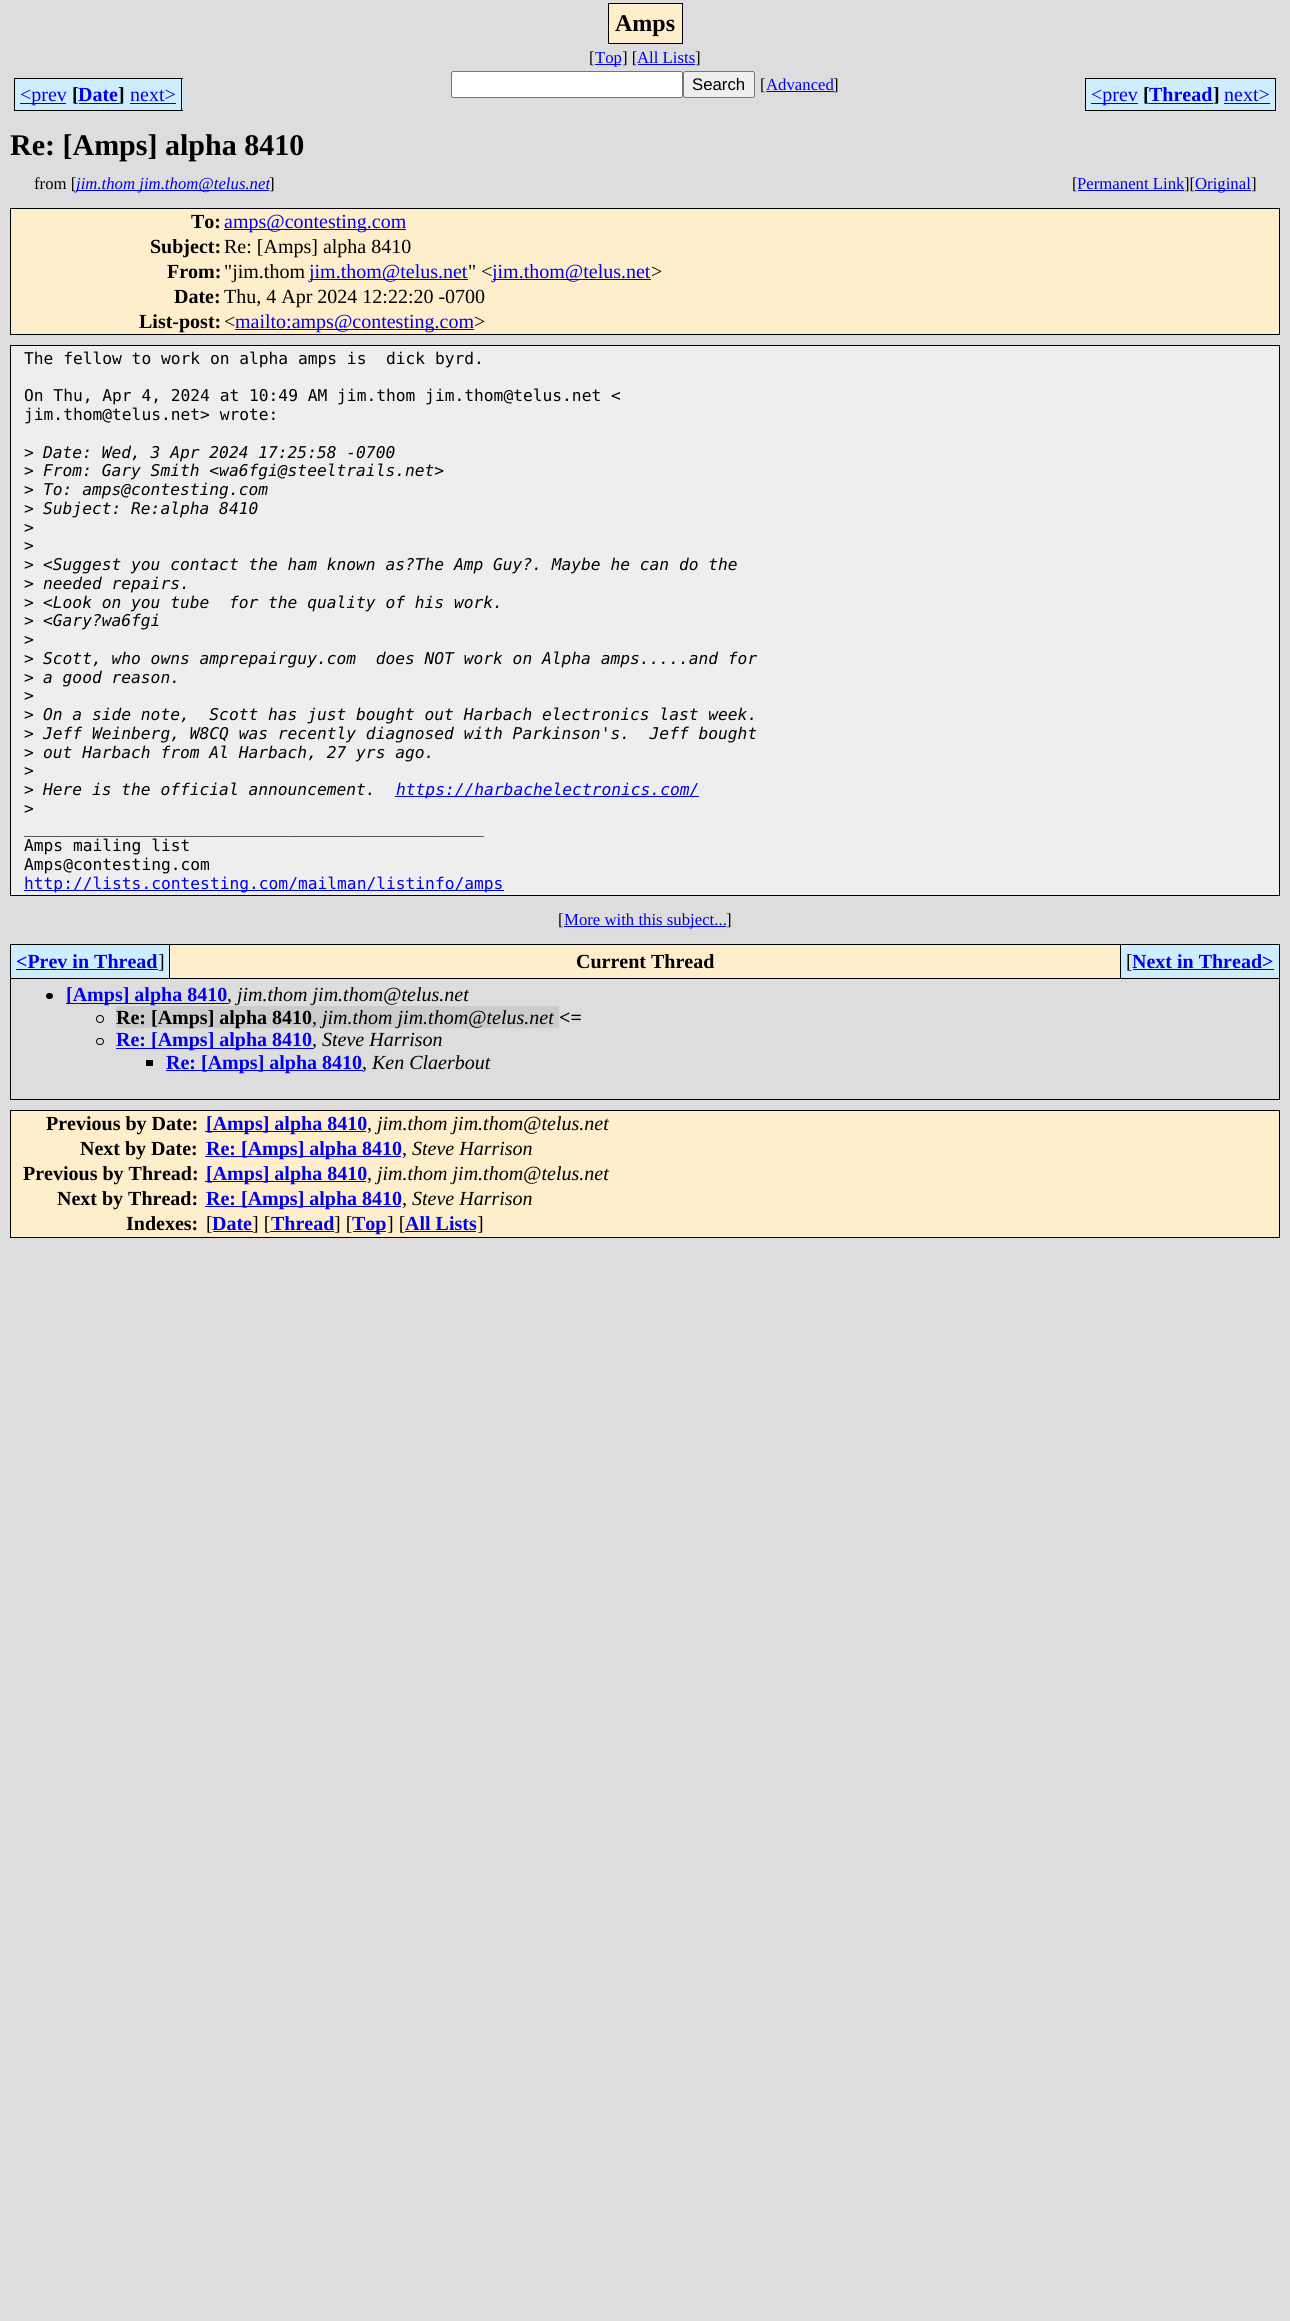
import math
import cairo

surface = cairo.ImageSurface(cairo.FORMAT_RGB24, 1290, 2321)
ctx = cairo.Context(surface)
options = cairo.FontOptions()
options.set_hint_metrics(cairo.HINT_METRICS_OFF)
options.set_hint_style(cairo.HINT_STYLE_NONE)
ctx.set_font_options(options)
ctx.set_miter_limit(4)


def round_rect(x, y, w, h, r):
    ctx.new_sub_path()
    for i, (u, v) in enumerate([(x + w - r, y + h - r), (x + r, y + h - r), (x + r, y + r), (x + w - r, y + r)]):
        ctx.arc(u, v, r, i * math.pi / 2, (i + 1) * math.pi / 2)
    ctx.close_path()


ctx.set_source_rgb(0.867, 0.867, 0.867)
ctx.paint()
ctx.set_source_rgb(1, 0.933, 0.8)
ctx.rectangle(608.5, 3.5, 74, 40)
ctx.fill_preserve()
ctx.set_source_rgb(0, 0, 0)
ctx.set_line_width(1)
ctx.stroke()
ctx.select_font_face("Liberation Serif", cairo.FONT_SLANT_NORMAL, cairo.FONT_WEIGHT_BOLD)
ctx.set_font_size(24)
ctx.move_to(615, 31)
ctx.show_text("Amps")
ctx.select_font_face("Liberation Serif")
ctx.set_font_size(16.75)
ctx.move_to(589, 63)
ctx.show_text("[")
ctx.set_source_rgb(0, 0, 0.933)
ctx.rectangle(595, 64, 26, 1)
ctx.fill()
ctx.move_to(595, 63)
ctx.show_text("Top")
ctx.set_source_rgb(0, 0, 0)
ctx.move_to(622, 63)
ctx.show_text("] [")
ctx.set_source_rgb(0, 0, 0.933)
ctx.move_to(637, 63)
ctx.show_text("All Lists")
ctx.set_source_rgb(0, 0, 0)
ctx.move_to(695, 63)
ctx.show_text("]")
ctx.set_source_rgb(0, 0, 0.933)
ctx.rectangle(638, 64, 57, 1)
ctx.fill()
ctx.set_source_rgb(1, 1, 1)
round_rect(451.5, 71.5, 231, 26, 2)
ctx.fill_preserve()
ctx.set_source_rgb(0.463, 0.463, 0.463)
ctx.stroke()
ctx.set_source_rgb(0.937, 0.937, 0.937)
round_rect(683.5, 71.5, 71, 26, 2)
ctx.fill_preserve()
ctx.set_source_rgb(0.463, 0.463, 0.463)
ctx.stroke()
ctx.select_font_face("Liberation Sans")
ctx.set_source_rgb(0, 0, 0)
ctx.move_to(692, 90)
ctx.show_text("Search")
ctx.select_font_face("Liberation Serif")
ctx.move_to(760, 90)
ctx.show_text("[")
ctx.set_source_rgb(0, 0, 0.933)
ctx.rectangle(766, 91, 68, 1)
ctx.fill()
ctx.move_to(766, 90)
ctx.show_text("Advanced")
ctx.set_source_rgb(0, 0, 0)
ctx.move_to(833, 90)
ctx.show_text("]")
ctx.set_source_rgb(0.8, 0.933, 1)
ctx.rectangle(15, 79, 51, 31)
ctx.fill()
ctx.set_source_rgb(0, 0, 0.933)
ctx.rectangle(20, 103, 46, 1)
ctx.fill()
ctx.set_source_rgb(0.8, 0.933, 1)
ctx.rectangle(66, 78, 13, 33)
ctx.fill()
ctx.set_font_size(20)
ctx.set_source_rgb(0, 0, 0.933)
ctx.move_to(20, 101)
ctx.show_text("<prev")
ctx.set_source_rgb(0, 0, 0)
ctx.rectangle(14, 78, 52, 1)
ctx.fill()
ctx.rectangle(14, 110, 52, 1)
ctx.fill()
ctx.rectangle(14, 78, 1, 33)
ctx.fill()
ctx.rectangle(66, 110, 53, 1)
ctx.fill()
ctx.select_font_face("Liberation Serif", cairo.FONT_SLANT_NORMAL, cairo.FONT_WEIGHT_BOLD)
ctx.move_to(72, 101)
ctx.show_text("[")
ctx.set_source_rgb(0.8, 0.933, 1)
ctx.rectangle(79, 79, 40, 31)
ctx.fill()
ctx.set_source_rgb(0, 0, 0.933)
ctx.move_to(78, 101)
ctx.show_text("Date")
ctx.set_source_rgb(0, 0, 0)
ctx.rectangle(66, 78, 53, 1)
ctx.fill()
ctx.set_source_rgb(0.8, 0.933, 1)
ctx.rectangle(119, 78, 11, 33)
ctx.fill()
ctx.set_source_rgb(0, 0, 0)
ctx.rectangle(119, 78, 64, 1)
ctx.fill()
ctx.move_to(118, 101)
ctx.show_text("]")
ctx.rectangle(119, 110, 11, 1)
ctx.fill()
ctx.set_source_rgb(0, 0, 0.933)
ctx.rectangle(79, 103, 40, 1)
ctx.fill()
ctx.set_source_rgb(0.8, 0.933, 1)
ctx.rectangle(130, 79, 53, 31)
ctx.fill()
ctx.select_font_face("Liberation Serif")
ctx.set_source_rgb(0, 0, 0.933)
ctx.move_to(130, 101)
ctx.show_text("next>")
ctx.set_source_rgb(0, 0, 0)
ctx.rectangle(181, 78, 1, 33)
ctx.fill()
ctx.rectangle(130, 110, 53, 1)
ctx.fill()
ctx.set_source_rgb(0, 0, 0.933)
ctx.rectangle(130, 103, 46, 1)
ctx.fill()
ctx.set_source_rgb(0.8, 0.933, 1)
ctx.rectangle(1086, 79, 52, 31)
ctx.fill()
ctx.set_source_rgb(0, 0, 0.933)
ctx.rectangle(1091, 103, 47, 1)
ctx.fill()
ctx.move_to(1091, 101)
ctx.show_text("<prev")
ctx.set_source_rgb(0, 0, 0)
ctx.rectangle(1085, 78, 53, 1)
ctx.fill()
ctx.rectangle(1085, 110, 53, 1)
ctx.fill()
ctx.rectangle(1085, 78, 1, 33)
ctx.fill()
ctx.set_source_rgb(0.8, 0.933, 1)
ctx.rectangle(1138, 78, 11, 33)
ctx.fill()
ctx.set_source_rgb(0, 0, 0)
ctx.rectangle(1138, 110, 75, 1)
ctx.fill()
ctx.select_font_face("Liberation Serif", cairo.FONT_SLANT_NORMAL, cairo.FONT_WEIGHT_BOLD)
ctx.move_to(1143, 101)
ctx.show_text("[")
ctx.set_source_rgb(0.8, 0.933, 1)
ctx.rectangle(1149, 79, 64, 31)
ctx.fill()
ctx.set_source_rgb(0, 0, 0.933)
ctx.rectangle(1149, 103, 64, 1)
ctx.fill()
ctx.move_to(1149, 101)
ctx.show_text("Thread")
ctx.set_source_rgb(0, 0, 0)
ctx.rectangle(1138, 78, 75, 1)
ctx.fill()
ctx.set_source_rgb(0.8, 0.933, 1)
ctx.rectangle(1213, 78, 11, 33)
ctx.fill()
ctx.set_source_rgb(0, 0, 0)
ctx.rectangle(1213, 78, 63, 1)
ctx.fill()
ctx.move_to(1213, 101)
ctx.show_text("]")
ctx.rectangle(1213, 110, 11, 1)
ctx.fill()
ctx.set_source_rgb(0.8, 0.933, 1)
ctx.rectangle(1224, 79, 51, 31)
ctx.fill()
ctx.select_font_face("Liberation Serif")
ctx.set_source_rgb(0, 0, 0.933)
ctx.move_to(1224, 101)
ctx.show_text("next>")
ctx.set_source_rgb(0, 0, 0)
ctx.rectangle(1275, 78, 1, 33)
ctx.fill()
ctx.rectangle(1224, 110, 52, 1)
ctx.fill()
ctx.set_source_rgb(0, 0, 0.933)
ctx.rectangle(1224, 103, 46, 1)
ctx.fill()
ctx.select_font_face("Liberation Serif", cairo.FONT_SLANT_NORMAL, cairo.FONT_WEIGHT_BOLD)
ctx.set_font_size(30)
ctx.set_source_rgb(0, 0, 0)
ctx.move_to(10, 155)
ctx.show_text("Re: [Amps] alpha 8410")
ctx.select_font_face("Liberation Serif")
ctx.set_font_size(16.75)
ctx.move_to(34, 189)
ctx.show_text("from [")
ctx.set_source_rgb(0, 0, 0.933)
ctx.rectangle(76, 190, 193, 1)
ctx.fill()
ctx.select_font_face("Liberation Serif", cairo.FONT_SLANT_ITALIC)
ctx.move_to(76, 189)
ctx.show_text("jim.thom jim.thom@telus.net")
ctx.select_font_face("Liberation Serif")
ctx.set_source_rgb(0, 0, 0)
ctx.move_to(269, 189)
ctx.show_text("]")
ctx.move_to(1072, 189)
ctx.show_text("[")
ctx.set_source_rgb(0, 0, 0.933)
ctx.move_to(1077, 189)
ctx.show_text("Permanent Link")
ctx.set_source_rgb(0, 0, 0)
ctx.move_to(1184, 189)
ctx.show_text("][")
ctx.set_source_rgb(0, 0, 0.933)
ctx.rectangle(1078, 190, 106, 1)
ctx.fill()
ctx.rectangle(1195, 190, 56, 1)
ctx.fill()
ctx.move_to(1195, 189)
ctx.show_text("Original")
ctx.set_source_rgb(0, 0, 0)
ctx.move_to(1251, 189)
ctx.show_text("]")
ctx.set_source_rgb(1, 0.933, 0.8)
ctx.rectangle(10.5, 208.5, 1269, 126)
ctx.fill_preserve()
ctx.set_source_rgb(0, 0, 0)
ctx.stroke()
ctx.select_font_face("Liberation Serif", cairo.FONT_SLANT_NORMAL, cairo.FONT_WEIGHT_BOLD)
ctx.set_font_size(20)
ctx.move_to(191, 228)
ctx.show_text("To:")
ctx.set_source_rgb(0, 0, 0.933)
ctx.rectangle(224, 229, 182, 1)
ctx.fill()
ctx.select_font_face("Liberation Serif")
ctx.move_to(224, 228)
ctx.show_text("amps@contesting.com")
ctx.select_font_face("Liberation Serif", cairo.FONT_SLANT_NORMAL, cairo.FONT_WEIGHT_BOLD)
ctx.set_source_rgb(0, 0, 0)
ctx.move_to(150, 253)
ctx.show_text("Subject:")
ctx.select_font_face("Liberation Serif")
ctx.move_to(224, 253)
ctx.show_text("Re: [Amps] alpha 8410")
ctx.select_font_face("Liberation Serif", cairo.FONT_SLANT_NORMAL, cairo.FONT_WEIGHT_BOLD)
ctx.move_to(167, 278)
ctx.show_text("From:")
ctx.select_font_face("Liberation Serif")
ctx.move_to(224, 278)
ctx.show_text("\"jim.thom")
ctx.set_source_rgb(0, 0, 0.933)
ctx.rectangle(310, 279, 158, 1)
ctx.fill()
ctx.move_to(309, 278)
ctx.show_text("jim.thom@telus.net")
ctx.set_source_rgb(0, 0, 0)
ctx.move_to(468, 278)
ctx.show_text("\" <")
ctx.set_source_rgb(0, 0, 0.933)
ctx.rectangle(493, 279, 158, 1)
ctx.fill()
ctx.move_to(492, 278)
ctx.show_text("jim.thom@telus.net")
ctx.set_source_rgb(0, 0, 0)
ctx.move_to(651, 278)
ctx.show_text(">")
ctx.select_font_face("Liberation Serif", cairo.FONT_SLANT_NORMAL, cairo.FONT_WEIGHT_BOLD)
ctx.move_to(174, 303)
ctx.show_text("Date:")
ctx.select_font_face("Liberation Serif")
ctx.move_to(224, 303)
ctx.show_text("Thu, 4 Apr 2024 12:22:20 -0700")
ctx.select_font_face("Liberation Serif", cairo.FONT_SLANT_NORMAL, cairo.FONT_WEIGHT_BOLD)
ctx.move_to(139, 328)
ctx.show_text("List-post:")
ctx.select_font_face("Liberation Serif")
ctx.move_to(224, 328)
ctx.show_text("<")
ctx.set_source_rgb(0, 0, 0.933)
ctx.rectangle(235, 329, 239, 1)
ctx.fill()
ctx.move_to(235, 328)
ctx.show_text("mailto:amps@contesting.com")
ctx.set_source_rgb(0, 0, 0)
ctx.move_to(474, 328)
ctx.show_text(">")
ctx.set_source_rgb(0.933, 0.933, 0.933)
ctx.rectangle(10.5, 345.5, 1269, 550)
ctx.fill_preserve()
ctx.set_source_rgb(0, 0, 0)
ctx.stroke()
ctx.select_font_face("DejaVu Sans Mono")
ctx.set_font_size(16.25)
ctx.move_to(24, 364)
ctx.show_text("The fellow to work on alpha amps is  dick byrd.")
ctx.move_to(24, 401)
ctx.show_text("On Thu, Apr 4, 2024 at 10:49 AM jim.thom jim.thom@telus.net <")
ctx.move_to(24, 420)
ctx.show_text("jim.thom@telus.net> wrote:")
ctx.move_to(24, 458)
ctx.show_text(">")
ctx.select_font_face("DejaVu Sans Mono", cairo.FONT_SLANT_ITALIC)
ctx.move_to(43, 458)
ctx.show_text("Date: Wed, 3 Apr 2024 17:25:58 -0700")
ctx.select_font_face("DejaVu Sans Mono")
ctx.move_to(24, 476)
ctx.show_text(">")
ctx.select_font_face("DejaVu Sans Mono", cairo.FONT_SLANT_ITALIC)
ctx.move_to(43, 476)
ctx.show_text("From: Gary Smith <wa6fgi@steeltrails.net>")
ctx.select_font_face("DejaVu Sans Mono")
ctx.move_to(24, 495)
ctx.show_text(">")
ctx.select_font_face("DejaVu Sans Mono", cairo.FONT_SLANT_ITALIC)
ctx.move_to(43, 495)
ctx.show_text("To: amps@contesting.com")
ctx.select_font_face("DejaVu Sans Mono")
ctx.move_to(24, 514)
ctx.show_text(">")
ctx.select_font_face("DejaVu Sans Mono", cairo.FONT_SLANT_ITALIC)
ctx.move_to(43, 514)
ctx.show_text("Subject: Re:alpha 8410")
ctx.select_font_face("DejaVu Sans Mono")
ctx.move_to(24, 533)
ctx.show_text(">")
ctx.move_to(24, 551)
ctx.show_text(">")
ctx.move_to(24, 570)
ctx.show_text(">")
ctx.select_font_face("DejaVu Sans Mono", cairo.FONT_SLANT_ITALIC)
ctx.move_to(43, 570)
ctx.show_text("<Suggest you contact the ham known as?The Amp Guy?. Maybe he can do the")
ctx.select_font_face("DejaVu Sans Mono")
ctx.move_to(24, 589)
ctx.show_text(">")
ctx.select_font_face("DejaVu Sans Mono", cairo.FONT_SLANT_ITALIC)
ctx.move_to(43, 589)
ctx.show_text("needed repairs.")
ctx.select_font_face("DejaVu Sans Mono")
ctx.move_to(24, 608)
ctx.show_text(">")
ctx.select_font_face("DejaVu Sans Mono", cairo.FONT_SLANT_ITALIC)
ctx.move_to(43, 608)
ctx.show_text("<Look on you tube  for the quality of his work.")
ctx.select_font_face("DejaVu Sans Mono")
ctx.move_to(24, 626)
ctx.show_text(">")
ctx.select_font_face("DejaVu Sans Mono", cairo.FONT_SLANT_ITALIC)
ctx.move_to(43, 626)
ctx.show_text("<Gary?wa6fgi")
ctx.select_font_face("DejaVu Sans Mono")
ctx.move_to(24, 645)
ctx.show_text(">")
ctx.move_to(24, 664)
ctx.show_text(">")
ctx.select_font_face("DejaVu Sans Mono", cairo.FONT_SLANT_ITALIC)
ctx.move_to(43, 664)
ctx.show_text("Scott, who owns amprepairguy.com  does NOT work on Alpha amps.....and for")
ctx.select_font_face("DejaVu Sans Mono")
ctx.move_to(24, 683)
ctx.show_text(">")
ctx.select_font_face("DejaVu Sans Mono", cairo.FONT_SLANT_ITALIC)
ctx.move_to(43, 683)
ctx.show_text("a good reason.")
ctx.select_font_face("DejaVu Sans Mono")
ctx.move_to(24, 701)
ctx.show_text(">")
ctx.move_to(24, 720)
ctx.show_text(">")
ctx.select_font_face("DejaVu Sans Mono", cairo.FONT_SLANT_ITALIC)
ctx.move_to(43, 720)
ctx.show_text("On a side note,  Scott has just bought out Harbach electronics last week.")
ctx.select_font_face("DejaVu Sans Mono")
ctx.move_to(24, 739)
ctx.show_text(">")
ctx.select_font_face("DejaVu Sans Mono", cairo.FONT_SLANT_ITALIC)
ctx.move_to(43, 739)
ctx.show_text("Jeff Weinberg, W8CQ was recently diagnosed with Parkinson's.  Jeff bought")
ctx.select_font_face("DejaVu Sans Mono")
ctx.move_to(24, 758)
ctx.show_text(">")
ctx.select_font_face("DejaVu Sans Mono", cairo.FONT_SLANT_ITALIC)
ctx.move_to(43, 758)
ctx.show_text("out Harbach from Al Harbach, 27 yrs ago.")
ctx.select_font_face("DejaVu Sans Mono")
ctx.move_to(24, 776)
ctx.show_text(">")
ctx.move_to(24, 795)
ctx.show_text(">")
ctx.select_font_face("DejaVu Sans Mono", cairo.FONT_SLANT_ITALIC)
ctx.move_to(43, 795)
ctx.show_text("Here is the official announcement.")
ctx.set_source_rgb(0, 0, 0.933)
ctx.rectangle(395, 796, 304, 1)
ctx.fill()
ctx.move_to(396, 795)
ctx.show_text("https://harbachelectronics.com/")
ctx.select_font_face("DejaVu Sans Mono")
ctx.set_source_rgb(0, 0, 0)
ctx.move_to(24, 814)
ctx.show_text(">")
ctx.move_to(24, 833)
ctx.show_text("_______________________________________________")
ctx.move_to(24, 851)
ctx.show_text("Amps mailing list")
ctx.move_to(24, 870)
ctx.show_text("Amps@contesting.com")
ctx.set_source_rgb(0, 0, 0.933)
ctx.rectangle(24, 890, 480, 1)
ctx.fill()
ctx.move_to(24, 889)
ctx.show_text("http://lists.contesting.com/mailman/listinfo/amps")
ctx.select_font_face("Liberation Serif")
ctx.set_font_size(16.75)
ctx.set_source_rgb(0, 0, 0)
ctx.move_to(558, 925)
ctx.show_text("[")
ctx.set_source_rgb(0, 0, 0.933)
ctx.rectangle(564, 926, 162, 1)
ctx.fill()
ctx.move_to(564, 925)
ctx.show_text("More with this subject...")
ctx.set_source_rgb(0, 0, 0)
ctx.move_to(726, 925)
ctx.show_text("]")
ctx.rectangle(10, 944, 1270, 156)
ctx.fill()
ctx.set_source_rgb(0.8, 0.933, 1)
ctx.rectangle(11, 945, 158, 33)
ctx.fill()
ctx.select_font_face("Liberation Serif", cairo.FONT_SLANT_NORMAL, cairo.FONT_WEIGHT_BOLD)
ctx.set_font_size(20)
ctx.set_source_rgb(0, 0, 0.933)
ctx.move_to(16, 968)
ctx.show_text("<Prev in Thread")
ctx.rectangle(16, 969, 142, 1)
ctx.fill()
ctx.select_font_face("Liberation Serif")
ctx.set_source_rgb(0, 0, 0)
ctx.move_to(158, 968)
ctx.show_text("]")
ctx.set_source_rgb(1, 0.933, 0.8)
ctx.rectangle(170, 945, 950, 33)
ctx.fill()
ctx.select_font_face("Liberation Serif", cairo.FONT_SLANT_NORMAL, cairo.FONT_WEIGHT_BOLD)
ctx.set_source_rgb(0, 0, 0)
ctx.move_to(576, 968)
ctx.show_text("Current Thread")
ctx.set_source_rgb(0.8, 0.933, 1)
ctx.rectangle(1121, 945, 158, 33)
ctx.fill()
ctx.select_font_face("Liberation Serif")
ctx.set_source_rgb(0, 0, 0)
ctx.move_to(1126, 968)
ctx.show_text("[")
ctx.select_font_face("Liberation Serif", cairo.FONT_SLANT_NORMAL, cairo.FONT_WEIGHT_BOLD)
ctx.set_source_rgb(0, 0, 0.933)
ctx.move_to(1132, 968)
ctx.show_text("Next in Thread>")
ctx.rectangle(1133, 969, 141, 1)
ctx.fill()
ctx.set_source_rgb(0.867, 0.867, 0.867)
ctx.rectangle(11, 979, 1268, 120)
ctx.fill()
ctx.set_source_rgb(0, 0, 0)
round_rect(46, 993, 7, 6, 3)
ctx.fill()
ctx.set_source_rgb(0, 0, 0.933)
ctx.rectangle(66, 1003, 162, 1)
ctx.fill()
ctx.move_to(66, 1001)
ctx.show_text("[Amps] alpha 8410")
ctx.select_font_face("Liberation Serif", cairo.FONT_SLANT_ITALIC)
ctx.set_source_rgb(0, 0, 0)
ctx.move_to(237, 1001)
ctx.show_text("jim.thom jim.thom@telus.net")
ctx.select_font_face("Liberation Serif")
ctx.move_to(227, 1001)
ctx.show_text(",")
ctx.new_path()
ctx.arc(100, 1019, 3.5, 0, 2 * math.pi)
ctx.stroke()
ctx.set_source_rgb(0.8, 0.8, 0.8)
ctx.rectangle(116, 1006, 443, 22)
ctx.fill()
ctx.select_font_face("Liberation Serif", cairo.FONT_SLANT_NORMAL, cairo.FONT_WEIGHT_BOLD)
ctx.set_source_rgb(0, 0, 0)
ctx.move_to(116, 1024)
ctx.show_text("Re: [Amps] alpha 8410")
ctx.select_font_face("Liberation Serif", cairo.FONT_SLANT_ITALIC)
ctx.move_to(322, 1024)
ctx.show_text("jim.thom jim.thom@telus.net")
ctx.select_font_face("Liberation Serif", cairo.FONT_SLANT_NORMAL, cairo.FONT_WEIGHT_BOLD)
ctx.move_to(559, 1024)
ctx.show_text("<=")
ctx.select_font_face("Liberation Serif")
ctx.move_to(312, 1024)
ctx.show_text(",")
round_rect(96.5, 1038.5, 7, 6, 3)
ctx.stroke()
ctx.set_source_rgb(0, 0, 0.933)
ctx.rectangle(116, 1048, 197, 1)
ctx.fill()
ctx.select_font_face("Liberation Serif", cairo.FONT_SLANT_NORMAL, cairo.FONT_WEIGHT_BOLD)
ctx.move_to(116, 1046)
ctx.show_text("Re: [Amps] alpha 8410")
ctx.select_font_face("Liberation Serif", cairo.FONT_SLANT_ITALIC)
ctx.set_source_rgb(0, 0, 0)
ctx.move_to(322, 1046)
ctx.show_text("Steve Harrison")
ctx.select_font_face("Liberation Serif")
ctx.move_to(312, 1046)
ctx.show_text(",")
ctx.rectangle(146, 1060, 7, 6)
ctx.fill()
ctx.set_source_rgb(0, 0, 0.933)
ctx.rectangle(166, 1070, 197, 1)
ctx.fill()
ctx.select_font_face("Liberation Serif", cairo.FONT_SLANT_NORMAL, cairo.FONT_WEIGHT_BOLD)
ctx.move_to(166, 1069)
ctx.show_text("Re: [Amps] alpha 8410")
ctx.select_font_face("Liberation Serif", cairo.FONT_SLANT_ITALIC)
ctx.set_source_rgb(0, 0, 0)
ctx.move_to(372, 1069)
ctx.show_text("Ken Claerbout")
ctx.select_font_face("Liberation Serif")
ctx.move_to(362, 1069)
ctx.show_text(",")
ctx.set_source_rgb(1, 0.933, 0.8)
ctx.rectangle(10.5, 1110.5, 1269, 127)
ctx.fill_preserve()
ctx.set_source_rgb(0, 0, 0)
ctx.stroke()
ctx.select_font_face("Liberation Serif", cairo.FONT_SLANT_NORMAL, cairo.FONT_WEIGHT_BOLD)
ctx.move_to(46, 1130)
ctx.show_text("Previous by Date:")
ctx.set_source_rgb(0, 0, 0.933)
ctx.rectangle(205, 1131, 161, 1)
ctx.fill()
ctx.move_to(206, 1130)
ctx.show_text("[Amps] alpha 8410")
ctx.select_font_face("Liberation Serif")
ctx.set_source_rgb(0, 0, 0)
ctx.move_to(367, 1130)
ctx.show_text(",")
ctx.select_font_face("Liberation Serif", cairo.FONT_SLANT_ITALIC)
ctx.move_to(377, 1130)
ctx.show_text("jim.thom jim.thom@telus.net")
ctx.select_font_face("Liberation Serif", cairo.FONT_SLANT_NORMAL, cairo.FONT_WEIGHT_BOLD)
ctx.move_to(80, 1155)
ctx.show_text("Next by Date:")
ctx.set_source_rgb(0, 0, 0.933)
ctx.rectangle(205, 1156, 196, 1)
ctx.fill()
ctx.move_to(206, 1155)
ctx.show_text("Re: [Amps] alpha 8410")
ctx.select_font_face("Liberation Serif")
ctx.set_source_rgb(0, 0, 0)
ctx.move_to(402, 1155)
ctx.show_text(",")
ctx.select_font_face("Liberation Serif", cairo.FONT_SLANT_ITALIC)
ctx.move_to(412, 1155)
ctx.show_text("Steve Harrison")
ctx.select_font_face("Liberation Serif", cairo.FONT_SLANT_NORMAL, cairo.FONT_WEIGHT_BOLD)
ctx.move_to(23, 1180)
ctx.show_text("Previous by Thread:")
ctx.set_source_rgb(0, 0, 0.933)
ctx.rectangle(205, 1181, 161, 1)
ctx.fill()
ctx.move_to(206, 1180)
ctx.show_text("[Amps] alpha 8410")
ctx.select_font_face("Liberation Serif")
ctx.set_source_rgb(0, 0, 0)
ctx.move_to(367, 1180)
ctx.show_text(",")
ctx.select_font_face("Liberation Serif", cairo.FONT_SLANT_ITALIC)
ctx.move_to(377, 1180)
ctx.show_text("jim.thom jim.thom@telus.net")
ctx.select_font_face("Liberation Serif", cairo.FONT_SLANT_NORMAL, cairo.FONT_WEIGHT_BOLD)
ctx.move_to(57, 1205)
ctx.show_text("Next by Thread:")
ctx.set_source_rgb(0, 0, 0.933)
ctx.rectangle(205, 1206, 196, 1)
ctx.fill()
ctx.move_to(206, 1205)
ctx.show_text("Re: [Amps] alpha 8410")
ctx.select_font_face("Liberation Serif")
ctx.set_source_rgb(0, 0, 0)
ctx.move_to(402, 1205)
ctx.show_text(",")
ctx.select_font_face("Liberation Serif", cairo.FONT_SLANT_ITALIC)
ctx.move_to(412, 1205)
ctx.show_text("Steve Harrison")
ctx.select_font_face("Liberation Serif", cairo.FONT_SLANT_NORMAL, cairo.FONT_WEIGHT_BOLD)
ctx.move_to(126, 1230)
ctx.show_text("Indexes:")
ctx.select_font_face("Liberation Serif")
ctx.move_to(206, 1230)
ctx.show_text("[")
ctx.select_font_face("Liberation Serif", cairo.FONT_SLANT_NORMAL, cairo.FONT_WEIGHT_BOLD)
ctx.set_source_rgb(0, 0, 0.933)
ctx.move_to(212, 1230)
ctx.show_text("Date")
ctx.rectangle(213, 1231, 40, 1)
ctx.fill()
ctx.select_font_face("Liberation Serif")
ctx.set_source_rgb(0, 0, 0)
ctx.move_to(252, 1230)
ctx.show_text("] [")
ctx.select_font_face("Liberation Serif", cairo.FONT_SLANT_NORMAL, cairo.FONT_WEIGHT_BOLD)
ctx.set_source_rgb(0, 0, 0.933)
ctx.move_to(271, 1230)
ctx.show_text("Thread")
ctx.rectangle(270, 1231, 64, 1)
ctx.fill()
ctx.select_font_face("Liberation Serif")
ctx.set_source_rgb(0, 0, 0)
ctx.move_to(334, 1230)
ctx.show_text("] [")
ctx.set_source_rgb(0, 0, 0.933)
ctx.rectangle(353, 1231, 33, 1)
ctx.fill()
ctx.select_font_face("Liberation Serif", cairo.FONT_SLANT_NORMAL, cairo.FONT_WEIGHT_BOLD)
ctx.move_to(352, 1230)
ctx.show_text("Top")
ctx.select_font_face("Liberation Serif")
ctx.set_source_rgb(0, 0, 0)
ctx.move_to(387, 1230)
ctx.show_text("] [")
ctx.select_font_face("Liberation Serif", cairo.FONT_SLANT_NORMAL, cairo.FONT_WEIGHT_BOLD)
ctx.set_source_rgb(0, 0, 0.933)
ctx.move_to(405, 1230)
ctx.show_text("All Lists")
ctx.rectangle(405, 1231, 71, 1)
ctx.fill()
ctx.select_font_face("Liberation Serif")
ctx.set_source_rgb(0, 0, 0)
ctx.move_to(477, 1230)
ctx.show_text("]")
surface.write_to_png("page.png")
